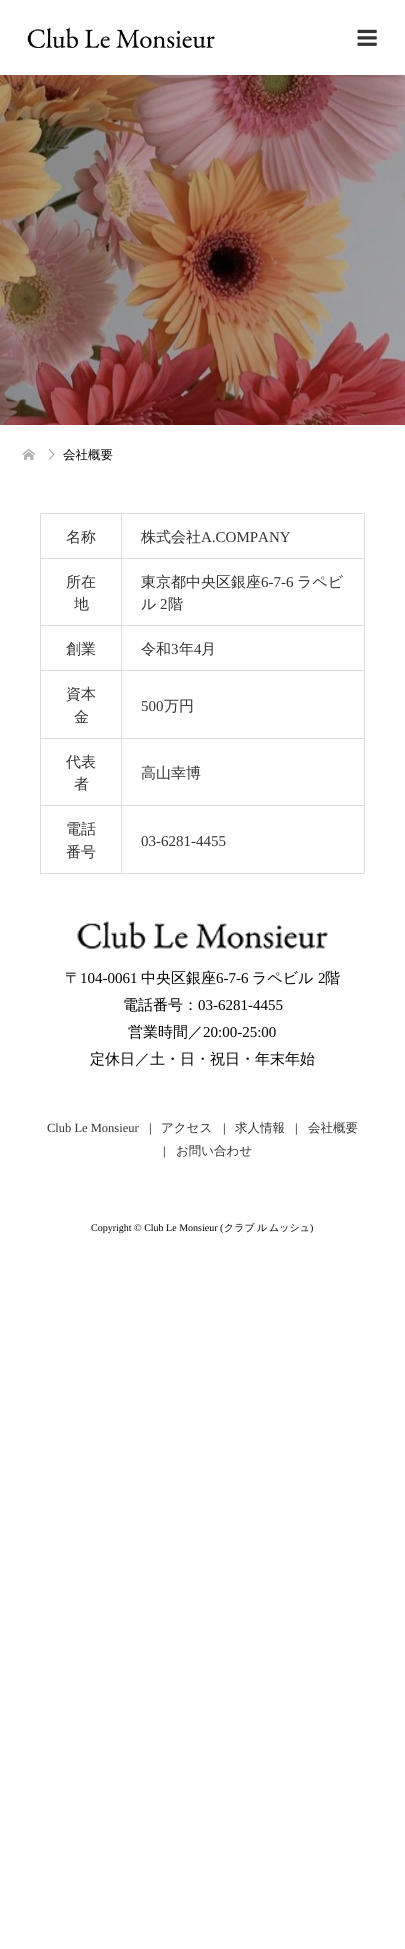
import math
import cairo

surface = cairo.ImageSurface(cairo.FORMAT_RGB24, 405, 1949)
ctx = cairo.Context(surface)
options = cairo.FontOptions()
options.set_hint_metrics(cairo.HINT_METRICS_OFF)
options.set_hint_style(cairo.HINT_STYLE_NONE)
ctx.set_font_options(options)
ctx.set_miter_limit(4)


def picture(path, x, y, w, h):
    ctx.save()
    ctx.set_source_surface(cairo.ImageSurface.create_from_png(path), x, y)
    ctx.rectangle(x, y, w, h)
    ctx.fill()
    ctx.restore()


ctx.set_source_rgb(1, 1, 1)
ctx.paint()
picture("img1.png", 27, 27, 188, 21)
picture("img2.png", 357, 29, 20, 17)
picture("img3.png", 0, 75, 405, 350)
picture("img4.png", 22, 448, 13, 12)
picture("img5.png", 48, 449, 7, 11)
ctx.select_font_face("WenQuanYi Zen Hei Medium")
ctx.set_font_size(12.5)
ctx.set_source_rgb(0, 0, 0)
ctx.move_to(63, 459)
ctx.show_text("会社概要")
ctx.set_source_rgb(0.867, 0.867, 0.867)
ctx.rectangle(121, 513, 244, 1)
ctx.fill()
ctx.rectangle(121, 558, 244, 1)
ctx.fill()
ctx.rectangle(121, 625, 244, 1)
ctx.fill()
ctx.rectangle(121, 670, 244, 1)
ctx.fill()
ctx.rectangle(121, 738, 244, 1)
ctx.fill()
ctx.rectangle(121, 805, 244, 1)
ctx.fill()
ctx.rectangle(364, 805, 1, 69)
ctx.fill()
ctx.rectangle(121, 873, 244, 1)
ctx.fill()
ctx.rectangle(121, 805, 1, 69)
ctx.fill()
ctx.rectangle(40, 805, 83, 1)
ctx.fill()
ctx.rectangle(121, 738, 1, 68)
ctx.fill()
ctx.rectangle(40, 738, 83, 1)
ctx.fill()
ctx.rectangle(121, 670, 1, 69)
ctx.fill()
ctx.rectangle(40, 670, 83, 1)
ctx.fill()
ctx.rectangle(121, 625, 1, 46)
ctx.fill()
ctx.rectangle(40, 625, 83, 1)
ctx.fill()
ctx.rectangle(121, 558, 1, 68)
ctx.fill()
ctx.rectangle(40, 558, 83, 1)
ctx.fill()
ctx.rectangle(121, 513, 1, 46)
ctx.fill()
ctx.rectangle(40, 513, 83, 1)
ctx.fill()
ctx.rectangle(40, 873, 83, 1)
ctx.fill()
ctx.rectangle(40, 805, 1, 69)
ctx.fill()
ctx.rectangle(40, 738, 1, 68)
ctx.fill()
ctx.rectangle(40, 670, 1, 69)
ctx.fill()
ctx.rectangle(40, 625, 1, 46)
ctx.fill()
ctx.rectangle(40, 558, 1, 68)
ctx.fill()
ctx.rectangle(40, 513, 1, 46)
ctx.fill()
ctx.set_font_size(15)
ctx.set_source_rgb(0.2, 0.2, 0.2)
ctx.move_to(66, 542)
ctx.show_text("名称")
ctx.set_source_rgb(0.867, 0.867, 0.867)
ctx.rectangle(364, 738, 1, 68)
ctx.fill()
ctx.rectangle(364, 670, 1, 69)
ctx.fill()
ctx.rectangle(364, 625, 1, 46)
ctx.fill()
ctx.rectangle(364, 558, 1, 68)
ctx.fill()
ctx.rectangle(364, 513, 1, 46)
ctx.fill()
ctx.set_source_rgb(0.2, 0.2, 0.2)
ctx.move_to(141, 542)
ctx.show_text("株式会社")
ctx.select_font_face("Liberation Serif")
ctx.move_to(201, 542)
ctx.show_text("A.COMPANY")
ctx.select_font_face("WenQuanYi Zen Hei Medium")
ctx.move_to(66, 587)
ctx.show_text("所在")
ctx.move_to(74, 609)
ctx.show_text("地")
ctx.move_to(141, 587)
ctx.show_text("東京都中央区銀座")
ctx.select_font_face("Liberation Serif")
ctx.move_to(261, 587)
ctx.show_text("6-7-6")
ctx.select_font_face("WenQuanYi Zen Hei Medium")
ctx.move_to(297, 587)
ctx.show_text("ラペビ")
ctx.move_to(141, 609)
ctx.show_text("ル")
ctx.select_font_face("Liberation Serif")
ctx.move_to(160, 609)
ctx.show_text("2")
ctx.select_font_face("WenQuanYi Zen Hei Medium")
ctx.move_to(168, 609)
ctx.show_text("階")
ctx.move_to(66, 654)
ctx.show_text("創業")
ctx.move_to(141, 654)
ctx.show_text("令和")
ctx.select_font_face("Liberation Serif")
ctx.move_to(171, 654)
ctx.show_text("3")
ctx.select_font_face("WenQuanYi Zen Hei Medium")
ctx.move_to(179, 654)
ctx.show_text("年")
ctx.select_font_face("Liberation Serif")
ctx.move_to(194, 654)
ctx.show_text("4")
ctx.select_font_face("WenQuanYi Zen Hei Medium")
ctx.move_to(201, 654)
ctx.show_text("月")
ctx.move_to(66, 699)
ctx.show_text("資本")
ctx.move_to(74, 722)
ctx.show_text("金")
ctx.select_font_face("Liberation Serif")
ctx.move_to(141, 711)
ctx.show_text("500")
ctx.select_font_face("WenQuanYi Zen Hei Medium")
ctx.move_to(164, 711)
ctx.show_text("万円")
ctx.move_to(66, 767)
ctx.show_text("代表")
ctx.move_to(74, 789)
ctx.show_text("者")
ctx.move_to(141, 778)
ctx.show_text("高山幸博")
ctx.move_to(66, 834)
ctx.show_text("電話")
ctx.move_to(66, 857)
ctx.show_text("番号")
ctx.select_font_face("Liberation Serif")
ctx.move_to(141, 846)
ctx.show_text("03-6281-4455")
picture("img6.png", 77, 921, 251, 28)
ctx.select_font_face("WenQuanYi Zen Hei Medium")
ctx.set_source_rgb(0, 0, 0)
ctx.move_to(65, 983)
ctx.show_text("〒")
ctx.select_font_face("Liberation Serif")
ctx.move_to(80, 983)
ctx.show_text("104-0061")
ctx.select_font_face("WenQuanYi Zen Hei Medium")
ctx.move_to(141, 983)
ctx.show_text("中央区銀座")
ctx.select_font_face("Liberation Serif")
ctx.move_to(216, 983)
ctx.show_text("6-7-6")
ctx.select_font_face("WenQuanYi Zen Hei Medium")
ctx.move_to(252, 983)
ctx.show_text("ラペビル")
ctx.select_font_face("Liberation Serif")
ctx.move_to(318, 983)
ctx.show_text("2")
ctx.select_font_face("WenQuanYi Zen Hei Medium")
ctx.move_to(325, 983)
ctx.show_text("階")
ctx.move_to(123, 1010)
ctx.show_text("電話番号：")
ctx.select_font_face("Liberation Serif")
ctx.move_to(198, 1010)
ctx.show_text("03-6281-4455")
ctx.select_font_face("WenQuanYi Zen Hei Medium")
ctx.move_to(128, 1037)
ctx.show_text("営業時間／")
ctx.select_font_face("Liberation Serif")
ctx.move_to(203, 1037)
ctx.show_text("20:00-25:00")
ctx.select_font_face("WenQuanYi Zen Hei Medium")
ctx.move_to(90, 1064)
ctx.show_text("定休日／土・日・祝日・年末年始")
ctx.select_font_face("Liberation Serif")
ctx.set_font_size(12.5)
ctx.set_source_rgb(0.2, 0.2, 0.2)
ctx.move_to(47, 1132)
ctx.show_text("Club Le Monsieur")
ctx.set_source_rgb(0, 0, 0)
ctx.move_to(149, 1132)
ctx.show_text("|")
ctx.select_font_face("WenQuanYi Zen Hei Medium")
ctx.set_source_rgb(0.2, 0.2, 0.2)
ctx.move_to(161, 1132)
ctx.show_text("アクセス")
ctx.select_font_face("Liberation Serif")
ctx.set_source_rgb(0, 0, 0)
ctx.move_to(223, 1132)
ctx.show_text("|")
ctx.select_font_face("WenQuanYi Zen Hei Medium")
ctx.set_source_rgb(0.2, 0.2, 0.2)
ctx.move_to(235, 1132)
ctx.show_text("求人情報")
ctx.select_font_face("Liberation Serif")
ctx.set_source_rgb(0, 0, 0)
ctx.move_to(295, 1132)
ctx.show_text("|")
ctx.select_font_face("WenQuanYi Zen Hei Medium")
ctx.set_source_rgb(0.2, 0.2, 0.2)
ctx.move_to(308, 1132)
ctx.show_text("会社概要")
ctx.select_font_face("Liberation Serif")
ctx.set_source_rgb(0, 0, 0)
ctx.move_to(163, 1155)
ctx.show_text("|")
ctx.select_font_face("WenQuanYi Zen Hei Medium")
ctx.set_source_rgb(0.2, 0.2, 0.2)
ctx.move_to(176, 1155)
ctx.show_text("お問い合わせ")
ctx.select_font_face("Liberation Serif")
ctx.set_font_size(10)
ctx.set_source_rgb(0, 0, 0)
ctx.move_to(91, 1231)
ctx.show_text("Copyright © Club Le Monsieur (")
ctx.select_font_face("WenQuanYi Zen Hei Medium")
ctx.move_to(224, 1231)
ctx.show_text("クラブ")
ctx.move_to(257, 1231)
ctx.show_text("ル")
ctx.move_to(269, 1231)
ctx.show_text("ムッシュ")
ctx.select_font_face("Liberation Serif")
ctx.move_to(310, 1231)
ctx.show_text(")")
surface.write_to_png("page.png")
